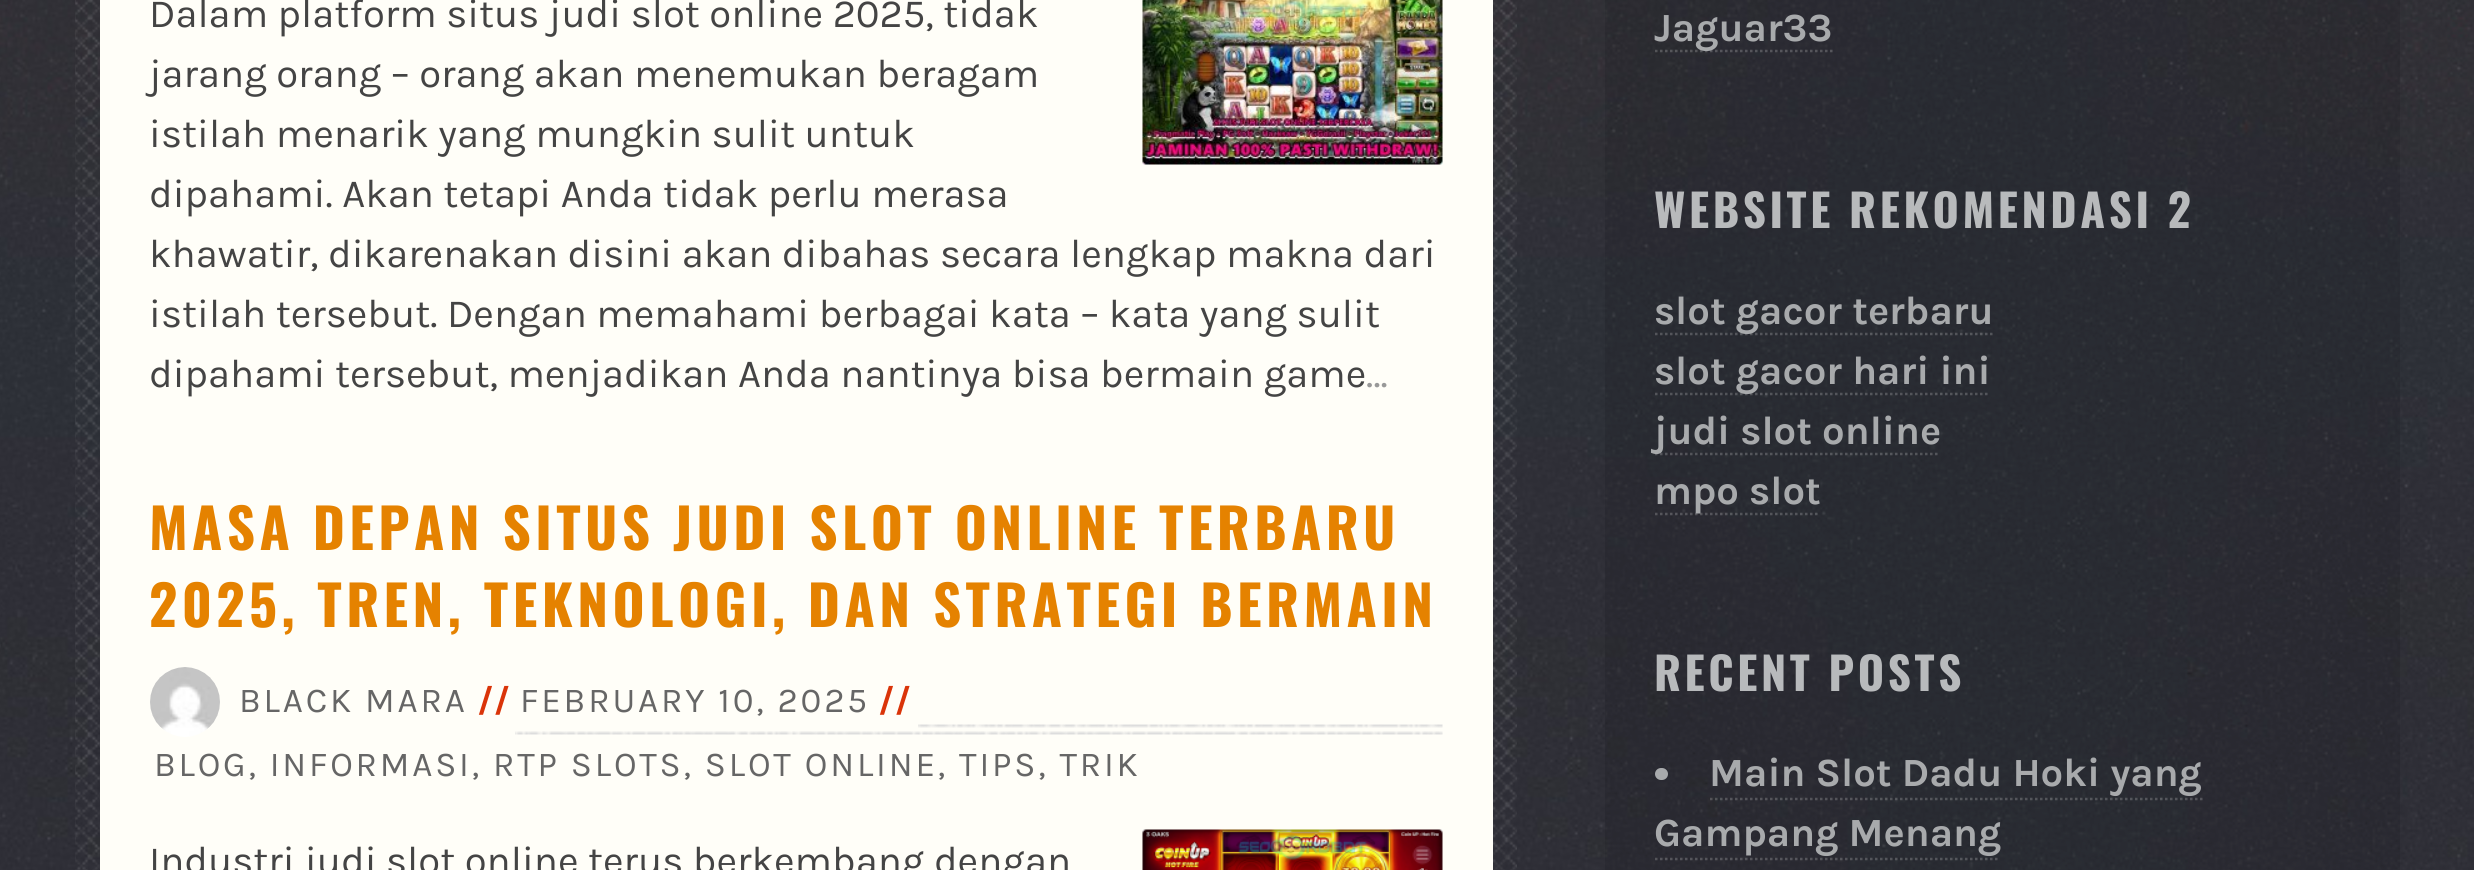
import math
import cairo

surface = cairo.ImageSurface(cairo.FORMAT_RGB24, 2474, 870)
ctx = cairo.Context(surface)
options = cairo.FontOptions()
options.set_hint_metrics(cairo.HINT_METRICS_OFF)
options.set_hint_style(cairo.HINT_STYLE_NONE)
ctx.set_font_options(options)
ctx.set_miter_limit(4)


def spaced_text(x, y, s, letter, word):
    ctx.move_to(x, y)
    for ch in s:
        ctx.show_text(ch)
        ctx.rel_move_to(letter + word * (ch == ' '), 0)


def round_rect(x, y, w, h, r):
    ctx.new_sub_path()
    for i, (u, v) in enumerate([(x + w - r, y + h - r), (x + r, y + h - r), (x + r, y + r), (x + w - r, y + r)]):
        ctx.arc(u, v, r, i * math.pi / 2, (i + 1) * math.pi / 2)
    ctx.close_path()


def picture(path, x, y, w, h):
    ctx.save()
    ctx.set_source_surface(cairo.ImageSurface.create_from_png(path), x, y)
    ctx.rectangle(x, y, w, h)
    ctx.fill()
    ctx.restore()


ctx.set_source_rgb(1, 1, 1)
ctx.paint()
picture("img1.png", 0, 0, 2474, 870)
picture("img2.png", 75, 0, 1442, 870)
ctx.set_source_rgb(1, 0.996, 0.969)
ctx.rectangle(100, 0, 1393, 870)
ctx.fill()
ctx.select_font_face("Karla")
ctx.set_font_size(40)
ctx.set_source_rgb(0.267, 0.267, 0.267)
ctx.move_to(149, 27)
ctx.show_text("Dalam platform situs judi slot online 2025, tidak")
ctx.move_to(149, 87)
ctx.show_text("jarang orang – orang akan menemukan beragam")
ctx.move_to(149, 147)
ctx.show_text("istilah menarik yang mungkin sulit untuk")
ctx.move_to(149, 207)
ctx.show_text("dipahami. Akan tetapi Anda tidak perlu merasa")
ctx.move_to(149, 267)
ctx.show_text("khawatir, dikarenakan disini akan dibahas secara lengkap makna dari")
ctx.move_to(149, 327)
ctx.show_text("istilah tersebut. Dengan memahami berbagai kata – kata yang sulit")
ctx.move_to(149, 387)
ctx.show_text("dipahami tersebut, menjadikan Anda nantinya bisa bermain game")
ctx.set_source_rgb(0.6, 0.6, 0.6)
ctx.move_to(1366, 387)
ctx.show_text("…")
picture("img3.png", 1142, 0, 301, 165)
ctx.select_font_face("Oswald", cairo.FONT_SLANT_NORMAL, cairo.FONT_WEIGHT_BOLD)
ctx.set_font_size(55)
ctx.set_source_rgb(0.898, 0.51, 0)
spaced_text(149, 550, "MASA DEPAN SITUS JUDI SLOT ONLINE TERBARU", 4.4, 0)
spaced_text(149, 627, "2025, TREN, TEKNOLOGI, DAN STRATEGI BERMAIN", 4.4, 0)
picture("img4.png", 515, 724, 928, 11)
picture("img5.png", 150, 667, 70, 70)
ctx.select_font_face("Karla")
ctx.set_font_size(35)
ctx.set_source_rgb(0.4, 0.4, 0.4)
spaced_text(239, 712, "BLACK MARA", 2.8, 0)
ctx.select_font_face("Karla", cairo.FONT_SLANT_NORMAL, cairo.FONT_WEIGHT_BOLD)
ctx.set_source_rgb(0.855, 0.204, 0.039)
ctx.move_to(477, 712)
ctx.show_text("//")
ctx.set_source_rgb(1, 0.996, 0.969)
ctx.rectangle(515, 724, 403, 4)
ctx.fill()
ctx.select_font_face("Karla")
ctx.set_source_rgb(0.4, 0.4, 0.4)
spaced_text(520, 712, "FEBRUARY 10, 2025", 2.8, 0)
ctx.select_font_face("Karla", cairo.FONT_SLANT_NORMAL, cairo.FONT_WEIGHT_BOLD)
ctx.set_source_rgb(0.855, 0.204, 0.039)
ctx.move_to(878, 712)
ctx.show_text("//")
ctx.select_font_face("Karla")
ctx.set_source_rgb(0.4, 0.4, 0.4)
spaced_text(154, 776, "BLOG, INFORMASI, RTP SLOTS, SLOT ONLINE, TIPS, TRIK", 2.8, 0)
ctx.set_font_size(40)
ctx.set_source_rgb(0.267, 0.267, 0.267)
ctx.move_to(149, 874)
ctx.show_text("Industri judi slot online terus berkembang dengan")
picture("img6.png", 1142, 829, 301, 41)
ctx.set_source_rgba(0, 0, 0, 0.1)
ctx.rectangle(1605, 0, 795, 870)
ctx.fill()
ctx.new_path()
ctx.move_to(1655, 51)
ctx.line_to(1832.5, 51)
ctx.set_source_rgba(1, 1, 1, 0.2)
ctx.set_line_width(2.5)
ctx.set_dash([2.5, 2.5])
ctx.stroke()
ctx.select_font_face("Karla", cairo.FONT_SLANT_NORMAL, cairo.FONT_WEIGHT_BOLD)
ctx.set_source_rgb(0.659, 0.667, 0.675)
ctx.move_to(1654, 41)
ctx.show_text("Jaguar33")
ctx.select_font_face("Oswald", cairo.FONT_SLANT_NORMAL, cairo.FONT_WEIGHT_BOLD)
ctx.set_font_size(45)
ctx.set_source_rgb(0.722, 0.729, 0.737)
spaced_text(1654, 228, "WEBSITE REKOMENDASI 2", 3.6, 0)
ctx.new_path()
ctx.move_to(1655, 334)
ctx.line_to(1992.5, 334)
ctx.set_source_rgba(1, 1, 1, 0.2)
ctx.stroke()
ctx.select_font_face("Karla", cairo.FONT_SLANT_NORMAL, cairo.FONT_WEIGHT_BOLD)
ctx.set_font_size(40)
ctx.set_source_rgb(0.659, 0.667, 0.675)
ctx.move_to(1654, 324)
ctx.show_text("slot gacor terbaru")
ctx.new_path()
ctx.move_to(1655, 394)
ctx.line_to(1990, 394)
ctx.set_source_rgba(1, 1, 1, 0.2)
ctx.stroke()
ctx.set_source_rgb(0.659, 0.667, 0.675)
ctx.move_to(1654, 384)
ctx.show_text("slot gacor hari ini")
ctx.new_path()
ctx.move_to(1655, 454)
ctx.line_to(1940, 454)
ctx.set_source_rgba(1, 1, 1, 0.2)
ctx.stroke()
ctx.set_source_rgb(0.659, 0.667, 0.675)
ctx.move_to(1654, 444)
ctx.show_text("judi slot online")
ctx.new_path()
ctx.move_to(1655, 514)
ctx.line_to(1820, 514)
ctx.set_source_rgba(1, 1, 1, 0.2)
ctx.stroke()
ctx.set_source_rgb(0.659, 0.667, 0.675)
ctx.move_to(1654, 504)
ctx.show_text("mpo slot")
ctx.select_font_face("Oswald", cairo.FONT_SLANT_NORMAL, cairo.FONT_WEIGHT_BOLD)
ctx.set_font_size(45)
ctx.set_source_rgb(0.722, 0.729, 0.737)
spaced_text(1654, 691, "RECENT POSTS", 3.6, 0)
ctx.set_source_rgb(0.659, 0.667, 0.675)
round_rect(1655, 768, 13, 12, 6)
ctx.fill()
ctx.select_font_face("Karla", cairo.FONT_SLANT_NORMAL, cairo.FONT_WEIGHT_BOLD)
ctx.set_font_size(40)
ctx.move_to(1709, 786)
ctx.show_text("Main Slot Dadu Hoki yang")
ctx.new_path()
ctx.move_to(1710, 799)
ctx.line_to(2202.5, 799)
ctx.set_source_rgba(1, 1, 1, 0.2)
ctx.stroke()
ctx.set_source_rgb(0.659, 0.667, 0.675)
ctx.move_to(1654, 846)
ctx.show_text("Gampang Menang")
ctx.new_path()
ctx.move_to(1655, 859)
ctx.line_to(2000, 859)
ctx.set_source_rgba(1, 1, 1, 0.2)
ctx.stroke()
surface.write_to_png("page.png")
